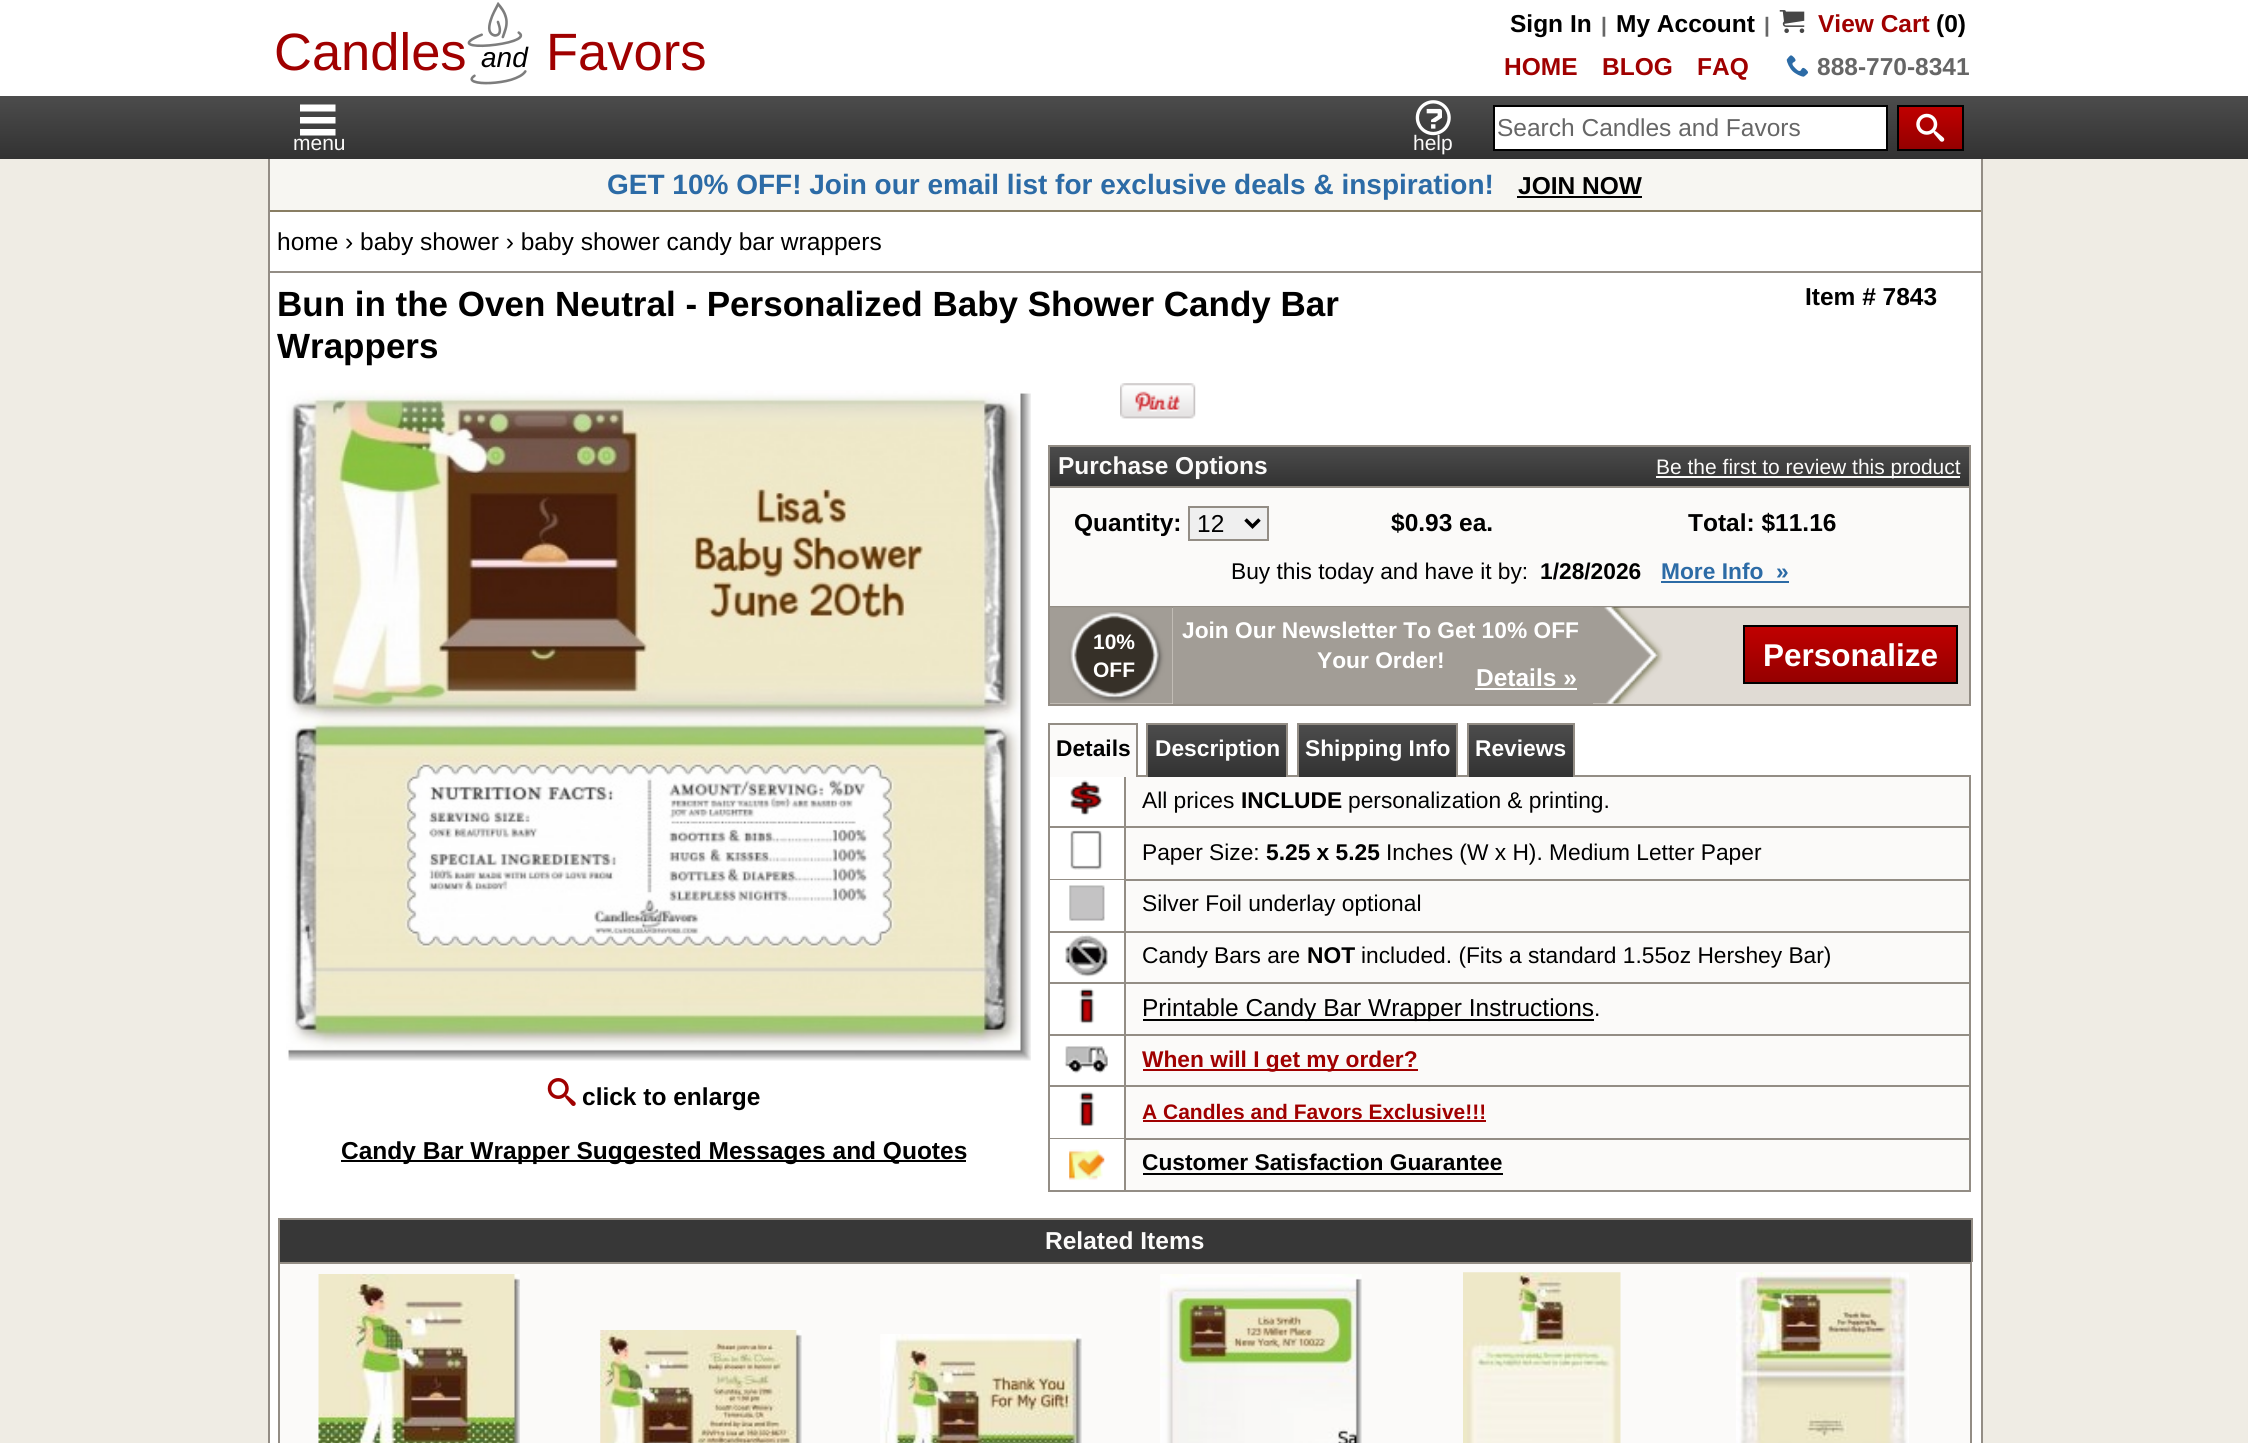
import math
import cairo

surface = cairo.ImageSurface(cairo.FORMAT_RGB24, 2248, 1443)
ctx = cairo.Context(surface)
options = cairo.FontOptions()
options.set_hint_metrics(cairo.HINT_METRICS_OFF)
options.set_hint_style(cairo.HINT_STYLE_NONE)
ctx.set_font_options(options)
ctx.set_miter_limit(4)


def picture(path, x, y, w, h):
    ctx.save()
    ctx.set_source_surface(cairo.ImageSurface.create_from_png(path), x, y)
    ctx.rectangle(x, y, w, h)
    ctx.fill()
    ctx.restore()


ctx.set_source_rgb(0.937, 0.925, 0.894)
ctx.paint()
ctx.set_source_rgb(1, 1, 1)
ctx.rectangle(0, 0, 2248, 96)
ctx.fill()
ctx.select_font_face("Liberation Sans")
ctx.set_font_size(52.5)
ctx.set_source_rgb(0.627, 0, 0)
ctx.move_to(274, 70)
ctx.show_text("Candles")
ctx.select_font_face("Liberation Sans", cairo.FONT_SLANT_ITALIC)
ctx.set_font_size(28)
ctx.set_source_rgb(0, 0, 0)
ctx.move_to(481, 67)
ctx.show_text("and")
picture("img1.png", 467, 2, 60, 83)
ctx.select_font_face("Liberation Sans")
ctx.set_font_size(52.5)
ctx.set_source_rgb(0.627, 0, 0)
ctx.move_to(546, 70)
ctx.show_text("Favors")
ctx.select_font_face("Liberation Sans", cairo.FONT_SLANT_NORMAL, cairo.FONT_WEIGHT_BOLD)
ctx.set_font_size(24.5)
ctx.set_source_rgb(0, 0, 0)
ctx.move_to(1510, 32)
ctx.show_text("Sign In")
ctx.set_font_size(21)
ctx.set_source_rgb(0.4, 0.4, 0.4)
ctx.move_to(1601, 32)
ctx.show_text("|")
ctx.set_font_size(24.5)
ctx.set_source_rgb(0, 0, 0)
ctx.move_to(1616, 32)
ctx.show_text("My Account")
ctx.set_font_size(21)
ctx.set_source_rgb(0.4, 0.4, 0.4)
ctx.move_to(1764, 32)
ctx.show_text("|")
picture("img2.png", 1779, 10, 26, 23)
ctx.set_font_size(24.5)
ctx.set_source_rgb(0.627, 0, 0)
ctx.move_to(1818, 32)
ctx.show_text("View Cart")
ctx.set_source_rgb(0, 0, 0)
ctx.move_to(1936, 32)
ctx.show_text("(0)")
ctx.set_source_rgb(0.627, 0, 0)
ctx.move_to(1504, 75)
ctx.show_text("HOME")
ctx.move_to(1602, 75)
ctx.show_text("BLOG")
ctx.move_to(1697, 75)
ctx.show_text("FAQ")
picture("img3.png", 1786, 55, 22, 22)
ctx.set_source_rgb(0.4, 0.4, 0.4)
ctx.move_to(1817, 75)
ctx.show_text("888-770-8341")
gradient = cairo.LinearGradient(1124, 96, 1124, 159)
gradient.add_color_stop_rgba(0, 0.298, 0.298, 0.298, 1)
gradient.add_color_stop_rgba(1, 0.196, 0.196, 0.196, 1)
ctx.set_source(gradient)
ctx.rectangle(0, 96, 2248, 63)
ctx.fill()
ctx.set_source_rgb(1, 1, 1)
ctx.rectangle(1494, 106, 393, 44)
ctx.fill_preserve()
ctx.set_source_rgb(0, 0, 0)
ctx.stroke()
ctx.select_font_face("Liberation Sans")
ctx.set_source_rgb(0.4, 0.4, 0.4)
ctx.move_to(1497, 136)
ctx.show_text("Search Candles and Favors")
gradient = cairo.LinearGradient(1930, 107, 1930, 149)
gradient.add_color_stop_rgba(0, 0.753, 0, 0, 1)
gradient.add_color_stop_rgba(1, 0.58, 0, 0, 1)
ctx.set_source(gradient)
ctx.rectangle(1899, 107, 63, 42)
ctx.fill()
ctx.rectangle(1898, 106, 65, 44)
ctx.set_source_rgb(0, 0, 0)
ctx.stroke()
picture("img4.png", 1916, 113, 29, 29)
ctx.set_source_rgb(1, 1, 1)
ctx.new_path()
ctx.move_to(300, 104.5)
ctx.line_to(335.5, 104.5)
ctx.line_to(335.5, 111.5)
ctx.line_to(300, 111.5)
ctx.close_path()
ctx.move_to(300, 117)
ctx.line_to(335.5, 117)
ctx.line_to(335.5, 123.5)
ctx.line_to(300, 123.5)
ctx.close_path()
ctx.move_to(300, 129)
ctx.line_to(335.5, 129)
ctx.line_to(335.5, 135.5)
ctx.line_to(300, 135.5)
ctx.close_path()
ctx.fill()
ctx.set_font_size(21)
ctx.set_source_rgb(0.984, 0.98, 0.976)
ctx.move_to(293, 150)
ctx.show_text("menu")
picture("img5.png", 1415, 100, 36, 36)
ctx.move_to(1413, 150)
ctx.show_text("help")
ctx.set_source_rgb(1, 1, 1)
ctx.rectangle(270, 212, 1711, 1231)
ctx.fill()
ctx.set_source_rgb(0.576, 0.553, 0.522)
ctx.rectangle(1981, 159, 2, 1284)
ctx.fill()
ctx.rectangle(268, 159, 2, 1284)
ctx.fill()
ctx.set_source_rgb(0.965, 0.961, 0.949)
ctx.rectangle(270, 159, 1711, 51)
ctx.fill()
ctx.set_source_rgb(0.537, 0.494, 0.388)
ctx.rectangle(270, 210, 1711, 2)
ctx.fill()
ctx.select_font_face("Liberation Sans", cairo.FONT_SLANT_NORMAL, cairo.FONT_WEIGHT_BOLD)
ctx.set_font_size(28)
ctx.set_source_rgb(0.173, 0.42, 0.651)
ctx.move_to(607, 194)
ctx.show_text("GET 10% OFF! Join our email list for exclusive deals & inspiration!")
ctx.set_font_size(24.5)
ctx.set_source_rgb(0, 0, 0)
ctx.move_to(1518, 194)
ctx.show_text("JOIN NOW")
ctx.rectangle(1517, 196, 125, 2)
ctx.fill()
ctx.set_source_rgb(0.576, 0.553, 0.522)
ctx.rectangle(270, 271, 1711, 2)
ctx.fill()
ctx.select_font_face("Liberation Sans")
ctx.set_source_rgb(0, 0, 0)
ctx.move_to(277, 250)
ctx.show_text("home › baby shower › baby shower candy bar wrappers")
ctx.select_font_face("Liberation Sans", cairo.FONT_SLANT_NORMAL, cairo.FONT_WEIGHT_BOLD)
ctx.set_font_size(35)
ctx.move_to(277, 316)
ctx.show_text("Bun in the Oven Neutral - Personalized Baby Shower Candy Bar")
ctx.move_to(277, 358)
ctx.show_text("Wrappers")
ctx.set_font_size(24.5)
ctx.move_to(1805, 305)
ctx.show_text("Item # 7843")
picture("img6.png", 286, 390, 745, 671)
picture("img7.png", 547, 1078, 29, 28)
ctx.move_to(582, 1105)
ctx.show_text("click to enlarge")
ctx.rectangle(341, 1160, 625, 2)
ctx.fill()
ctx.move_to(341, 1159)
ctx.show_text("Candy Bar Wrapper Suggested Messages and Quotes")
picture("img8.png", 1120, 383, 76, 36)
gradient = cairo.LinearGradient(1509, 446, 1509, 487)
gradient.add_color_stop_rgba(0, 0.298, 0.298, 0.298, 1)
gradient.add_color_stop_rgba(1, 0.196, 0.196, 0.196, 1)
ctx.set_source(gradient)
ctx.rectangle(1050, 447, 919, 39)
ctx.fill()
ctx.rectangle(1049, 446, 921, 41)
ctx.set_source_rgb(0.576, 0.553, 0.522)
ctx.stroke()
ctx.set_source_rgb(0.984, 0.98, 0.976)
ctx.move_to(1058, 474)
ctx.show_text("Purchase Options")
ctx.rectangle(1656, 476, 304, 2)
ctx.fill()
ctx.select_font_face("Liberation Sans")
ctx.set_font_size(21)
ctx.move_to(1656, 474)
ctx.show_text("Be the first to review this product")
ctx.rectangle(1050, 488, 919, 118)
ctx.fill()
ctx.set_source_rgb(0.576, 0.553, 0.522)
ctx.rectangle(1969, 488, 2, 217)
ctx.fill()
ctx.rectangle(1048, 704, 923, 2)
ctx.fill()
ctx.rectangle(1048, 488, 2, 217)
ctx.fill()
ctx.select_font_face("Liberation Sans", cairo.FONT_SLANT_NORMAL, cairo.FONT_WEIGHT_BOLD)
ctx.set_font_size(24.5)
ctx.set_source_rgb(0, 0, 0)
ctx.move_to(1074, 531)
ctx.show_text("Quantity:")
ctx.set_source_rgb(0.937, 0.937, 0.937)
ctx.rectangle(1189, 507, 79, 33)
ctx.fill_preserve()
ctx.set_source_rgb(0.576, 0.553, 0.522)
ctx.stroke()
ctx.new_path()
ctx.move_to(1245.5, 519.5)
ctx.line_to(1252.5, 526.5)
ctx.line_to(1259.5, 519.5)
ctx.set_source_rgb(0, 0, 0)
ctx.set_line_width(3.5)
ctx.stroke()
ctx.select_font_face("Liberation Sans")
ctx.move_to(1197, 532)
ctx.show_text("12")
ctx.select_font_face("Liberation Sans", cairo.FONT_SLANT_NORMAL, cairo.FONT_WEIGHT_BOLD)
ctx.move_to(1391, 531)
ctx.show_text("$0.93 ea.")
ctx.move_to(1688, 531)
ctx.show_text("Total: $11.16")
ctx.select_font_face("Liberation Sans")
ctx.set_font_size(22.75)
ctx.move_to(1231, 579)
ctx.show_text("Buy this today and have it by:")
ctx.select_font_face("Liberation Sans", cairo.FONT_SLANT_NORMAL, cairo.FONT_WEIGHT_BOLD)
ctx.move_to(1540, 579)
ctx.show_text("1/28/2026")
ctx.set_source_rgb(0.173, 0.42, 0.651)
ctx.move_to(1661, 579)
ctx.show_text("More Info  »")
ctx.rectangle(1661, 581, 128, 2)
ctx.fill()
ctx.set_source_rgb(0.878, 0.859, 0.831)
ctx.rectangle(1050, 608, 919, 96)
ctx.fill()
ctx.set_source_rgb(0.576, 0.553, 0.522)
ctx.rectangle(1050, 606, 919, 2)
ctx.fill()
picture("img9.png", 1050, 607, 123, 97)
ctx.set_source_rgb(0.635, 0.616, 0.588)
ctx.rectangle(1173, 607, 420, 97)
ctx.fill()
picture("img10.png", 1593, 607, 70, 97)
ctx.set_font_size(21)
ctx.set_source_rgb(1, 1, 1)
ctx.move_to(1093, 649)
ctx.show_text("10%")
ctx.move_to(1093, 677)
ctx.show_text("OFF")
ctx.set_font_size(22.75)
ctx.move_to(1182, 638)
ctx.show_text("Join Our Newsletter To Get 10% OFF")
ctx.move_to(1317, 668)
ctx.show_text("Your Order!")
ctx.set_font_size(24.5)
ctx.move_to(1476, 686)
ctx.show_text("Details »")
ctx.rectangle(1475, 688, 102, 2)
ctx.fill()
gradient = cairo.LinearGradient(1851, 627, 1851, 683)
gradient.add_color_stop_rgba(0, 0.753, 0, 0, 1)
gradient.add_color_stop_rgba(1, 0.58, 0, 0, 1)
ctx.set_source(gradient)
ctx.rectangle(1745, 627, 211, 55)
ctx.fill()
ctx.rectangle(1744, 626, 213, 57)
ctx.set_source_rgb(0, 0, 0)
ctx.set_line_width(2)
ctx.stroke()
ctx.set_font_size(31.5)
ctx.set_source_rgb(1, 1, 1)
ctx.move_to(1763, 666)
ctx.show_text("Personalize")
ctx.set_source_rgb(0.984, 0.98, 0.976)
ctx.rectangle(1050, 725, 86, 52)
ctx.fill()
ctx.set_source_rgb(0.576, 0.553, 0.522)
ctx.rectangle(1048, 723, 90, 2)
ctx.fill()
ctx.rectangle(1136, 723, 2, 54)
ctx.fill()
ctx.rectangle(1048, 775, 2, 417)
ctx.fill()
ctx.rectangle(1048, 723, 2, 54)
ctx.fill()
ctx.set_font_size(22.75)
ctx.set_source_rgb(0, 0, 0)
ctx.move_to(1056, 756)
ctx.show_text("Details")
ctx.set_source_rgb(0.576, 0.553, 0.522)
ctx.rectangle(1138, 775, 833, 2)
ctx.fill()
gradient = cairo.LinearGradient(1217, 725, 1217, 777)
gradient.add_color_stop_rgba(0, 0.298, 0.298, 0.298, 1)
gradient.add_color_stop_rgba(1, 0.196, 0.196, 0.196, 1)
ctx.set_source(gradient)
ctx.rectangle(1148, 725, 138, 52)
ctx.fill()
ctx.set_source_rgb(0.576, 0.553, 0.522)
ctx.rectangle(1146, 723, 142, 2)
ctx.fill()
ctx.rectangle(1286, 723, 2, 54)
ctx.fill()
ctx.rectangle(1146, 723, 2, 54)
ctx.fill()
ctx.set_source_rgb(1, 1, 1)
ctx.move_to(1155, 756)
ctx.show_text("Description")
gradient = cairo.LinearGradient(1377, 725, 1377, 777)
gradient.add_color_stop_rgba(0, 0.298, 0.298, 0.298, 1)
gradient.add_color_stop_rgba(1, 0.196, 0.196, 0.196, 1)
ctx.set_source(gradient)
ctx.rectangle(1299, 725, 157, 52)
ctx.fill()
ctx.set_source_rgb(0.576, 0.553, 0.522)
ctx.rectangle(1297, 723, 161, 2)
ctx.fill()
ctx.rectangle(1456, 723, 2, 54)
ctx.fill()
ctx.rectangle(1297, 723, 2, 54)
ctx.fill()
ctx.set_source_rgb(1, 1, 1)
ctx.move_to(1305, 756)
ctx.show_text("Shipping Info")
gradient = cairo.LinearGradient(1521, 725, 1521, 777)
gradient.add_color_stop_rgba(0, 0.298, 0.298, 0.298, 1)
gradient.add_color_stop_rgba(1, 0.196, 0.196, 0.196, 1)
ctx.set_source(gradient)
ctx.rectangle(1469, 725, 104, 52)
ctx.fill()
ctx.set_source_rgb(0.576, 0.553, 0.522)
ctx.rectangle(1467, 723, 108, 2)
ctx.fill()
ctx.rectangle(1573, 723, 2, 54)
ctx.fill()
ctx.rectangle(1467, 723, 2, 54)
ctx.fill()
ctx.set_source_rgb(1, 1, 1)
ctx.move_to(1475, 756)
ctx.show_text("Reviews")
ctx.set_source_rgb(0.984, 0.98, 0.976)
ctx.rectangle(1126, 777, 843, 413)
ctx.fill()
ctx.set_source_rgb(0.576, 0.553, 0.522)
ctx.rectangle(1969, 775, 2, 417)
ctx.fill()
ctx.rectangle(1050, 826, 919, 2)
ctx.fill()
picture("img11.png", 1070, 780, 33, 36)
ctx.rectangle(1124, 777, 2, 51)
ctx.fill()
ctx.select_font_face("Liberation Sans")
ctx.set_source_rgb(0, 0, 0)
ctx.move_to(1142, 808)
ctx.show_text("All prices")
ctx.select_font_face("Liberation Sans", cairo.FONT_SLANT_NORMAL, cairo.FONT_WEIGHT_BOLD)
ctx.move_to(1241, 808)
ctx.show_text("INCLUDE")
ctx.select_font_face("Liberation Sans")
ctx.move_to(1348, 808)
ctx.show_text("personalization & printing.")
ctx.set_source_rgb(0.576, 0.553, 0.522)
ctx.rectangle(1050, 879, 74, 1)
ctx.fill()
picture("img12.png", 1070, 830, 33, 40)
ctx.rectangle(1124, 879, 845, 2)
ctx.fill()
ctx.rectangle(1124, 828, 2, 52)
ctx.fill()
ctx.set_source_rgb(0, 0, 0)
ctx.move_to(1142, 860)
ctx.show_text("Paper Size:")
ctx.select_font_face("Liberation Sans", cairo.FONT_SLANT_NORMAL, cairo.FONT_WEIGHT_BOLD)
ctx.move_to(1266, 860)
ctx.show_text("5.25 x 5.25")
ctx.select_font_face("Liberation Sans")
ctx.move_to(1386, 860)
ctx.show_text("Inches (W x H). Medium Letter Paper")
ctx.set_source_rgb(0.576, 0.553, 0.522)
ctx.rectangle(1050, 931, 919, 2)
ctx.fill()
picture("img13.png", 1069, 885, 36, 36)
ctx.rectangle(1124, 880, 2, 53)
ctx.fill()
ctx.set_source_rgb(0, 0, 0)
ctx.move_to(1142, 911)
ctx.show_text("Silver Foil underlay optional")
ctx.set_source_rgb(0.576, 0.553, 0.522)
ctx.rectangle(1050, 982, 919, 2)
ctx.fill()
picture("img14.png", 1065, 934, 43, 43)
ctx.rectangle(1124, 933, 2, 51)
ctx.fill()
ctx.set_source_rgb(0, 0, 0)
ctx.move_to(1142, 963)
ctx.show_text("Candy Bars are")
ctx.select_font_face("Liberation Sans", cairo.FONT_SLANT_NORMAL, cairo.FONT_WEIGHT_BOLD)
ctx.move_to(1307, 963)
ctx.show_text("NOT")
ctx.select_font_face("Liberation Sans")
ctx.move_to(1361, 963)
ctx.show_text("included. (Fits a standard 1.55oz Hershey Bar)")
ctx.set_source_rgb(0.576, 0.553, 0.522)
ctx.rectangle(1050, 1034, 919, 2)
ctx.fill()
picture("img15.png", 1079, 988, 16, 36)
ctx.rectangle(1124, 984, 2, 52)
ctx.fill()
ctx.set_source_rgb(0, 0, 0)
ctx.rectangle(1143, 1019, 451, 2)
ctx.fill()
ctx.set_font_size(24.5)
ctx.move_to(1142, 1016)
ctx.show_text("Printable Candy Bar Wrapper Instructions")
ctx.set_font_size(22.75)
ctx.move_to(1594, 1016)
ctx.show_text(".")
ctx.set_source_rgb(0.576, 0.553, 0.522)
ctx.rectangle(1050, 1085, 919, 2)
ctx.fill()
picture("img16.png", 1064, 1045, 44, 29)
ctx.rectangle(1124, 1036, 2, 51)
ctx.fill()
ctx.set_source_rgb(0.627, 0, 0)
ctx.rectangle(1143, 1069, 275, 2)
ctx.fill()
ctx.select_font_face("Liberation Sans", cairo.FONT_SLANT_NORMAL, cairo.FONT_WEIGHT_BOLD)
ctx.move_to(1142, 1067)
ctx.show_text("When will I get my order?")
ctx.set_source_rgb(0.576, 0.553, 0.522)
ctx.rectangle(1050, 1138, 74, 1)
ctx.fill()
picture("img17.png", 1079, 1091, 16, 36)
ctx.rectangle(1124, 1138, 845, 2)
ctx.fill()
ctx.rectangle(1124, 1087, 2, 52)
ctx.fill()
ctx.set_font_size(21)
ctx.set_source_rgb(0.627, 0, 0)
ctx.move_to(1142, 1119)
ctx.show_text("A Candles and Favors Exclusive!!!")
ctx.rectangle(1143, 1120, 343, 2)
ctx.fill()
ctx.set_source_rgb(0.576, 0.553, 0.522)
ctx.rectangle(1050, 1190, 919, 2)
ctx.fill()
picture("img18.png", 1069, 1149, 36, 32)
ctx.rectangle(1124, 1139, 2, 53)
ctx.fill()
ctx.set_font_size(22.75)
ctx.set_source_rgb(0, 0, 0)
ctx.move_to(1142, 1170)
ctx.show_text("Customer Satisfaction Guarantee")
ctx.rectangle(1143, 1173, 360, 2)
ctx.fill()
ctx.set_source_rgb(0.216, 0.216, 0.216)
ctx.rectangle(280, 1220, 1691, 42)
ctx.fill()
ctx.set_source_rgb(0.576, 0.553, 0.522)
ctx.rectangle(278, 1218, 1694, 2)
ctx.fill()
ctx.rectangle(1971, 1218, 2, 44)
ctx.fill()
ctx.rectangle(278, 1218, 2, 44)
ctx.fill()
ctx.set_font_size(24.5)
ctx.set_source_rgb(0.984, 0.98, 0.976)
ctx.move_to(1045, 1249)
ctx.show_text("Related Items")
ctx.rectangle(279, 1263, 1692, 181)
ctx.fill_preserve()
ctx.set_source_rgb(0.576, 0.553, 0.522)
ctx.stroke()
picture("img19.png", 318, 1274, 202, 169)
picture("img20.png", 600, 1330, 202, 113)
picture("img21.png", 880, 1334, 202, 109)
picture("img22.png", 1160, 1274, 202, 169)
picture("img23.png", 1463, 1272, 158, 171)
picture("img24.png", 1736, 1272, 173, 171)
surface.write_to_png("page.png")
